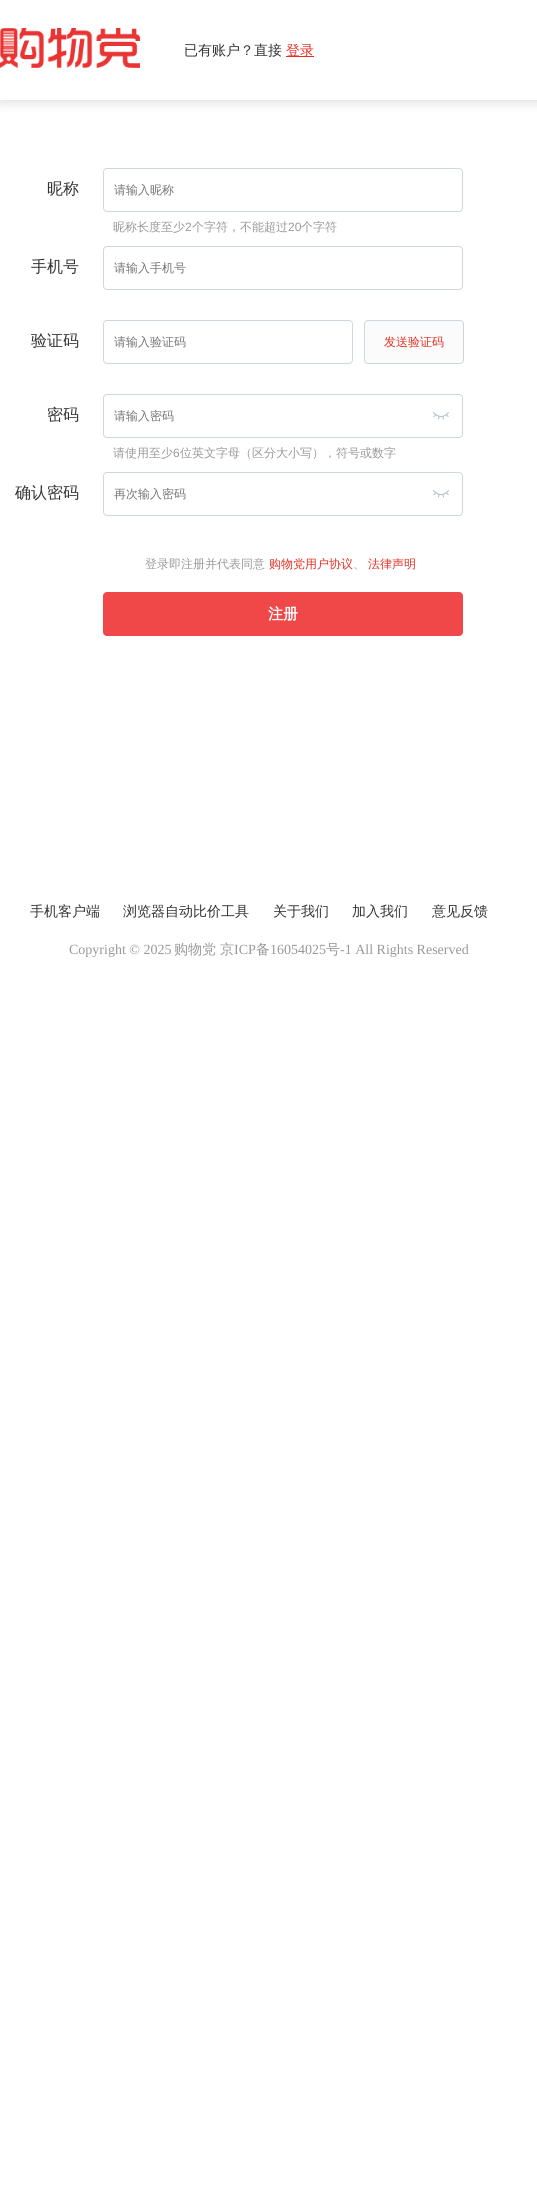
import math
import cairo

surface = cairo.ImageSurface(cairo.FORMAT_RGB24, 537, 2203)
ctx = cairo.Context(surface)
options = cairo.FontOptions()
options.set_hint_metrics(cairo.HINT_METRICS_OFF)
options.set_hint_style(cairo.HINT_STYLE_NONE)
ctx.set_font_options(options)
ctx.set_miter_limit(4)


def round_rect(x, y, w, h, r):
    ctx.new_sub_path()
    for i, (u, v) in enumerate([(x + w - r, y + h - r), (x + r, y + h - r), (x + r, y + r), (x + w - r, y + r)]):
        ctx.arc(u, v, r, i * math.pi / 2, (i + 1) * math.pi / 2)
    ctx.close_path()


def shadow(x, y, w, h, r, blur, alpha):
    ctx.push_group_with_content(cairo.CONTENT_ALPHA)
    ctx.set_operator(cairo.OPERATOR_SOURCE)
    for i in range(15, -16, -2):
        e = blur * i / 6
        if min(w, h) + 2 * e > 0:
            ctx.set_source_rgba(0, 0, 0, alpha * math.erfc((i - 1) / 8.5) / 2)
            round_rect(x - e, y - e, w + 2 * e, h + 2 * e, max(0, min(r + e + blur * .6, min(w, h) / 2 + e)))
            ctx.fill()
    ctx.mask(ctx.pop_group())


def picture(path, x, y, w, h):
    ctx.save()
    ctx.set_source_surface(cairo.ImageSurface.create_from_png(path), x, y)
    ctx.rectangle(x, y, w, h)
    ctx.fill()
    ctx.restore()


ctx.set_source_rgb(1, 1, 1)
ctx.paint()
ctx.save()
ctx.rectangle(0, 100, 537, 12)
ctx.clip()
ctx.set_source_rgb(0.725, 0.725, 0.725)
shadow(0, 2, 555, 100, 0, 6, 0.5)
ctx.restore()
picture("img1.png", 0, 28, 140, 40)
ctx.select_font_face("WenQuanYi Zen Hei Medium")
ctx.set_font_size(14)
ctx.set_source_rgb(0.2, 0.2, 0.2)
ctx.move_to(184, 55)
ctx.show_text("已有账户？直接")
ctx.set_source_rgb(0.878, 0.188, 0.141)
ctx.rectangle(286, 56, 28, 1)
ctx.fill()
ctx.move_to(286, 55)
ctx.show_text("登录")
ctx.set_font_size(16)
ctx.set_source_rgb(0.2, 0.2, 0.2)
ctx.move_to(47, 194)
ctx.show_text("昵称")
round_rect(103.5, 168.5, 359, 43, 3.5)
ctx.set_source_rgb(0.812, 0.843, 0.863)
ctx.set_line_width(1)
ctx.stroke()
ctx.set_font_size(12)
ctx.set_source_rgb(0.459, 0.459, 0.459)
ctx.move_to(114, 194)
ctx.show_text("请输入昵称")
ctx.set_source_rgb(0.6, 0.6, 0.6)
ctx.move_to(113, 231)
ctx.show_text("昵称长度至少")
ctx.select_font_face("Liberation Sans")
ctx.move_to(185, 231)
ctx.show_text("2")
ctx.select_font_face("WenQuanYi Zen Hei Medium")
ctx.move_to(192, 231)
ctx.show_text("个字符，不能超过")
ctx.select_font_face("Liberation Sans")
ctx.move_to(288, 231)
ctx.show_text("20")
ctx.select_font_face("WenQuanYi Zen Hei Medium")
ctx.move_to(301, 231)
ctx.show_text("个字符")
ctx.set_font_size(16)
ctx.set_source_rgb(0.2, 0.2, 0.2)
ctx.move_to(31, 272)
ctx.show_text("手机号")
round_rect(103.5, 246.5, 359, 43, 3.5)
ctx.set_source_rgb(0.812, 0.843, 0.863)
ctx.stroke()
ctx.set_font_size(12)
ctx.set_source_rgb(0.459, 0.459, 0.459)
ctx.move_to(114, 272)
ctx.show_text("请输入手机号")
ctx.set_font_size(16)
ctx.set_source_rgb(0.2, 0.2, 0.2)
ctx.move_to(31, 346)
ctx.show_text("验证码")
round_rect(103.5, 320.5, 249, 43, 3.5)
ctx.set_source_rgb(0.812, 0.843, 0.863)
ctx.stroke()
ctx.set_font_size(12)
ctx.set_source_rgb(0.459, 0.459, 0.459)
ctx.move_to(114, 346)
ctx.show_text("请输入验证码")
ctx.set_source_rgb(0.984, 0.984, 0.984)
round_rect(364.5, 320.5, 99, 43, 3.5)
ctx.fill_preserve()
ctx.set_source_rgb(0.812, 0.843, 0.863)
ctx.stroke()
ctx.set_source_rgb(0.878, 0.188, 0.141)
ctx.move_to(384, 346)
ctx.show_text("发送验证码")
ctx.set_font_size(16)
ctx.set_source_rgb(0.2, 0.2, 0.2)
ctx.move_to(47, 420)
ctx.show_text("密码")
round_rect(103.5, 394.5, 359, 43, 3.5)
ctx.set_source_rgb(0.812, 0.843, 0.863)
ctx.stroke()
ctx.set_font_size(12)
ctx.set_source_rgb(0.459, 0.459, 0.459)
ctx.move_to(114, 420)
ctx.show_text("请输入密码")
picture("img2.png", 433, 412, 16, 8)
ctx.set_source_rgb(0.6, 0.6, 0.6)
ctx.move_to(113, 457)
ctx.show_text("请使用至少")
ctx.select_font_face("Liberation Sans")
ctx.move_to(173, 457)
ctx.show_text("6")
ctx.select_font_face("WenQuanYi Zen Hei Medium")
ctx.move_to(180, 457)
ctx.show_text("位英文字母（区分大小写），符号或数字")
ctx.set_font_size(16)
ctx.set_source_rgb(0.2, 0.2, 0.2)
ctx.move_to(15, 498)
ctx.show_text("确认密码")
round_rect(103.5, 472.5, 359, 43, 3.5)
ctx.set_source_rgb(0.812, 0.843, 0.863)
ctx.stroke()
ctx.set_font_size(12)
ctx.set_source_rgb(0.459, 0.459, 0.459)
ctx.move_to(114, 498)
ctx.show_text("再次输入密码")
picture("img2.png", 433, 490, 16, 8)
ctx.set_source_rgb(0.6, 0.6, 0.6)
ctx.move_to(145, 568)
ctx.show_text("登录即注册并代表同意")
ctx.set_source_rgb(0.878, 0.188, 0.141)
ctx.move_to(269, 568)
ctx.show_text("购物党用户协议")
ctx.set_source_rgb(0.6, 0.6, 0.6)
ctx.move_to(353, 568)
ctx.show_text("、")
ctx.set_source_rgb(0.878, 0.188, 0.141)
ctx.move_to(368, 568)
ctx.show_text("法律声明")
ctx.set_source_rgb(0.941, 0.282, 0.282)
round_rect(103, 592, 360, 44, 4)
ctx.fill()
ctx.select_font_face("WenQuanYi Zen Hei", cairo.FONT_SLANT_NORMAL, cairo.FONT_WEIGHT_BOLD)
ctx.set_font_size(15)
ctx.set_source_rgb(1, 1, 1)
ctx.move_to(268, 619)
ctx.show_text("注册")
ctx.select_font_face("WenQuanYi Zen Hei Medium")
ctx.set_font_size(14)
ctx.set_source_rgb(0.2, 0.2, 0.2)
ctx.move_to(30, 916)
ctx.show_text("手机客户端")
ctx.move_to(123, 916)
ctx.show_text("浏览器自动比价工具")
ctx.move_to(273, 916)
ctx.show_text("关于我们")
ctx.move_to(352, 916)
ctx.show_text("加入我们")
ctx.move_to(432, 916)
ctx.show_text("意见反馈")
ctx.select_font_face("Liberation Serif")
ctx.set_source_rgb(0.6, 0.6, 0.6)
ctx.move_to(69, 954)
ctx.show_text("Copyright © 2025")
ctx.select_font_face("WenQuanYi Zen Hei Medium")
ctx.move_to(174, 954)
ctx.show_text("购物党")
ctx.move_to(220, 954)
ctx.show_text("京")
ctx.select_font_face("Liberation Serif")
ctx.move_to(234, 954)
ctx.show_text("ICP")
ctx.select_font_face("WenQuanYi Zen Hei Medium")
ctx.move_to(256, 954)
ctx.show_text("备")
ctx.select_font_face("Liberation Serif")
ctx.move_to(270, 954)
ctx.show_text("16054025")
ctx.select_font_face("WenQuanYi Zen Hei Medium")
ctx.move_to(326, 954)
ctx.show_text("号")
ctx.select_font_face("Liberation Serif")
ctx.move_to(340, 954)
ctx.show_text("-1 All Rights Reserved")
surface.write_to_png("page.png")
